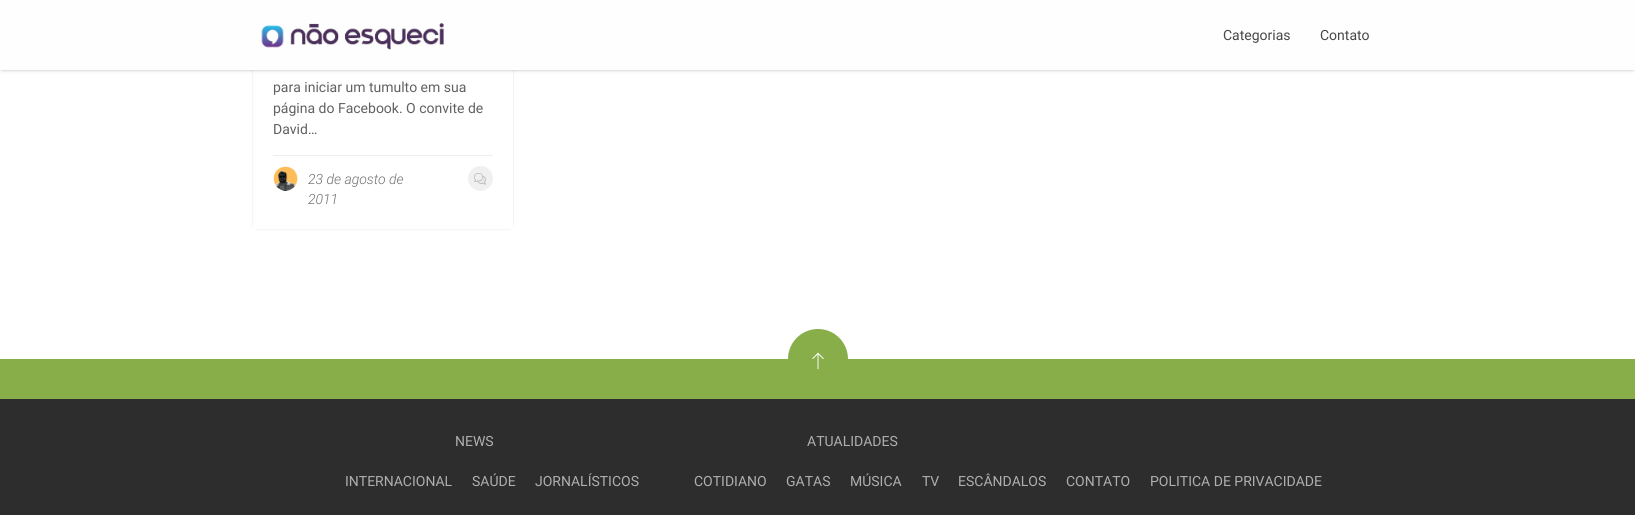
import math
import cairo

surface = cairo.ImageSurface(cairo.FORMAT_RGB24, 1635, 515)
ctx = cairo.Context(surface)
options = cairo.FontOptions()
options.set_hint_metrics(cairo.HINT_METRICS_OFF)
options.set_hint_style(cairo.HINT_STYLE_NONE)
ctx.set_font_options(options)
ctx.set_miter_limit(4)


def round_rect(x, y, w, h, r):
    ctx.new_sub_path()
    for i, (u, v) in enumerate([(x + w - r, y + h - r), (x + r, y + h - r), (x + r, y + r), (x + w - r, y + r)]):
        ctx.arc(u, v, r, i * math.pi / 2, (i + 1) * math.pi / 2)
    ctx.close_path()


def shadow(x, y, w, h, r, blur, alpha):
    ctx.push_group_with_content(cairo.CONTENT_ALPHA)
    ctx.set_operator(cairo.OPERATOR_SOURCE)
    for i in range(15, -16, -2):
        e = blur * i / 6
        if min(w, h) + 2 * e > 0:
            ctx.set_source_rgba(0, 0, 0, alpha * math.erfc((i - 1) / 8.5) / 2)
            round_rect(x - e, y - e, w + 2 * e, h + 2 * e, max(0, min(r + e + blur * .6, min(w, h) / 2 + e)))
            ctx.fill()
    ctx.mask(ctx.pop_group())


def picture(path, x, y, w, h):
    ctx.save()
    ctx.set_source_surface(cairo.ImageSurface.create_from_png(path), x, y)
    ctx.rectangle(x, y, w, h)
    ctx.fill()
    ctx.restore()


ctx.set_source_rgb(1, 1, 1)
ctx.paint()
ctx.set_source_rgb(0, 0, 0)
shadow(2, 3, 1631, 66, 0, 2, 0.5)
ctx.save()
ctx.set_fill_rule(cairo.FILL_RULE_EVEN_ODD)
ctx.new_path()
ctx.move_to(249, 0)
ctx.line_to(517, 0)
ctx.line_to(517, 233)
ctx.line_to(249, 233)
ctx.close_path()
ctx.move_to(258, -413)
ctx.line_to(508, -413)
ctx.curve_to(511, -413, 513, -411, 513, -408)
ctx.line_to(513, 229)
ctx.line_to(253, 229)
ctx.line_to(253, -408)
ctx.curve_to(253, -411, 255, -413, 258, -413)
ctx.close_path()
ctx.clip()
shadow(252, -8, 262, 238, 6, 0.5, 0.05)
ctx.restore()
ctx.set_source_rgb(0.996, 0.996, 0.996)
ctx.rectangle(0, 0, 1635, 70)
ctx.fill()
picture("img1.png", 261, 23, 183, 27)
ctx.select_font_face("Roboto")
ctx.set_font_size(14)
ctx.set_source_rgb(0.278, 0.278, 0.278)
ctx.move_to(1223, 40)
ctx.show_text("Categorias")
ctx.move_to(1320, 40)
ctx.show_text("Contato")
ctx.set_source_rgb(0.38, 0.38, 0.38)
ctx.move_to(273, 92)
ctx.show_text("para iniciar um tumulto em sua")
ctx.move_to(273, 113)
ctx.show_text("página do Facebook. O convite de")
ctx.move_to(273, 134)
ctx.show_text("David…")
ctx.set_source_rgb(0.929, 0.929, 0.929)
ctx.rectangle(273, 155, 220, 1)
ctx.fill()
picture("img2.png", 273, 166, 25, 25)
ctx.select_font_face("Roboto Light", cairo.FONT_SLANT_ITALIC)
ctx.set_source_rgb(0.439, 0.439, 0.439)
ctx.move_to(308, 184)
ctx.show_text("23 de agosto de")
ctx.move_to(308, 204)
ctx.show_text("2011")
ctx.set_source_rgb(0.941, 0.941, 0.941)
ctx.new_path()
ctx.arc(480.5, 178.5, 12.5, 0, 2 * math.pi)
ctx.fill()
picture("img3.png", 474, 173, 12, 12)
ctx.set_source_rgb(0.533, 0.682, 0.29)
ctx.rectangle(0, 359, 1635, 40)
ctx.fill()
ctx.arc(818, 359, 30, 0, 2 * math.pi)
ctx.fill()
picture("img4.png", 812, 352, 12, 18)
ctx.set_source_rgb(0.176, 0.176, 0.176)
ctx.rectangle(0, 399, 1635, 116)
ctx.fill()
ctx.select_font_face("Roboto")
ctx.set_source_rgb(0.686, 0.686, 0.686)
ctx.move_to(455, 446)
ctx.show_text("NEWS")
ctx.move_to(345, 486)
ctx.show_text("INTERNACIONAL")
ctx.move_to(472, 486)
ctx.show_text("SAÚDE")
ctx.move_to(535, 486)
ctx.show_text("JORNALÍSTICOS")
ctx.move_to(807, 446)
ctx.show_text("ATUALIDADES")
ctx.move_to(694, 486)
ctx.show_text("COTIDIANO")
ctx.move_to(786, 486)
ctx.show_text("GATAS")
ctx.move_to(850, 486)
ctx.show_text("MÚSICA")
ctx.move_to(922, 486)
ctx.show_text("TV")
ctx.move_to(958, 486)
ctx.show_text("ESCÂNDALOS")
ctx.move_to(1066, 486)
ctx.show_text("CONTATO")
ctx.move_to(1150, 486)
ctx.show_text("POLITICA DE PRIVACIDADE")
surface.write_to_png("page.png")
